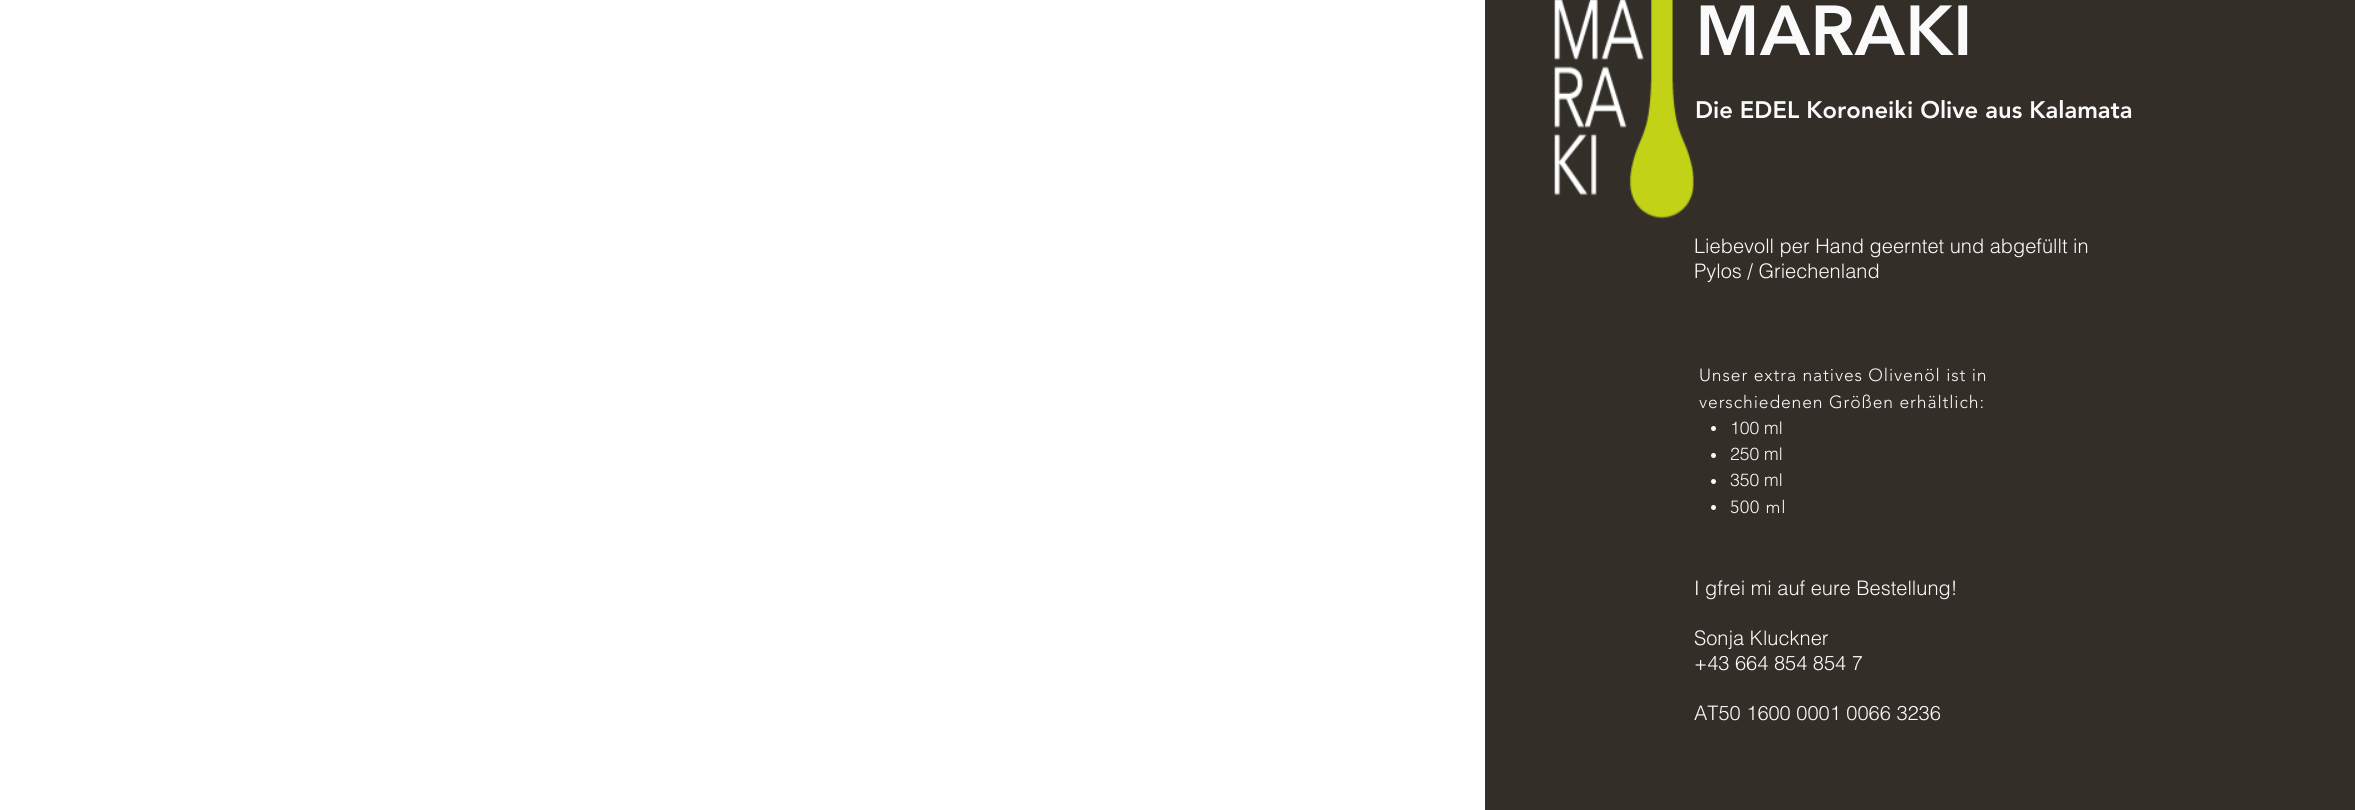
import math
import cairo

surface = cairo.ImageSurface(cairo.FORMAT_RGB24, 2355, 810)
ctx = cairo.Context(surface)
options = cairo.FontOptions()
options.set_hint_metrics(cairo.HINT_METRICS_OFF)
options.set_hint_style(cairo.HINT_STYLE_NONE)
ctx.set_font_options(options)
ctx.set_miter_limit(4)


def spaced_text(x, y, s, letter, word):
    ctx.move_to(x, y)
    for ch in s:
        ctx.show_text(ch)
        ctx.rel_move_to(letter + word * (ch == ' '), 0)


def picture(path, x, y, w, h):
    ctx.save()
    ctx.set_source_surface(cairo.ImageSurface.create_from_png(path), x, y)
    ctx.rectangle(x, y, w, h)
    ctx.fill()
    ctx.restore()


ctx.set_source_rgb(1, 1, 1)
ctx.paint()
ctx.set_source_rgb(0.204, 0.18, 0.161)
ctx.rectangle(1485, 0, 870, 810)
ctx.fill()
picture("img1.png", 1554, 0, 140, 219)
ctx.select_font_face("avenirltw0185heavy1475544 Black")
ctx.set_font_size(70)
ctx.set_source_rgb(0.98, 0.98, 0.98)
ctx.move_to(1695, 55)
ctx.show_text("MARAKI")
ctx.set_font_size(23.75)
ctx.move_to(1695, 118)
ctx.show_text("Die EDEL Koroneiki Olive aus Kalamata")
ctx.select_font_face("helvetica Light")
ctx.set_font_size(20)
ctx.move_to(1694, 253)
ctx.show_text("Liebevoll per Hand geerntet und abgefüllt in")
ctx.move_to(1694, 278)
ctx.show_text("Pylos / Griechenland")
ctx.select_font_face("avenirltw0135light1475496 Light")
ctx.set_font_size(17.5)
spaced_text(1699, 381, "Unser extra natives Olivenöl ist in", 0.9, 0)
spaced_text(1699, 408, "verschiedenen Größen erhältlich:", 0.9, 0)
ctx.new_path()
ctx.arc(1713.5, 428.5, 2.5, 0, 2 * math.pi)
ctx.fill()
ctx.select_font_face("helvetica Light")
ctx.move_to(1730, 434)
ctx.show_text("100 ml")
ctx.new_path()
ctx.arc(1713.5, 455.5, 2.5, 0, 2 * math.pi)
ctx.fill()
ctx.move_to(1730, 460)
ctx.show_text("250 ml")
ctx.new_path()
ctx.arc(1713.5, 481.5, 2.5, 0, 2 * math.pi)
ctx.fill()
ctx.move_to(1730, 486)
ctx.show_text("350 ml")
ctx.new_path()
ctx.arc(1713.5, 507.5, 2.5, 0, 2 * math.pi)
ctx.fill()
ctx.select_font_face("avenirltw0135light1475496 Light")
spaced_text(1730, 513, "500 ml", 0.9, 0)
ctx.select_font_face("helvetica Light")
ctx.set_font_size(20)
ctx.move_to(1694, 595)
ctx.show_text("I gfrei mi auf eure Bestellung!")
ctx.move_to(1694, 645)
ctx.show_text("Sonja Kluckner")
ctx.move_to(1694, 670)
ctx.show_text("+43 664 854 854 7")
ctx.move_to(1694, 720)
ctx.show_text("AT50 1600 0001 0066 3236")
surface.write_to_png("page.png")
